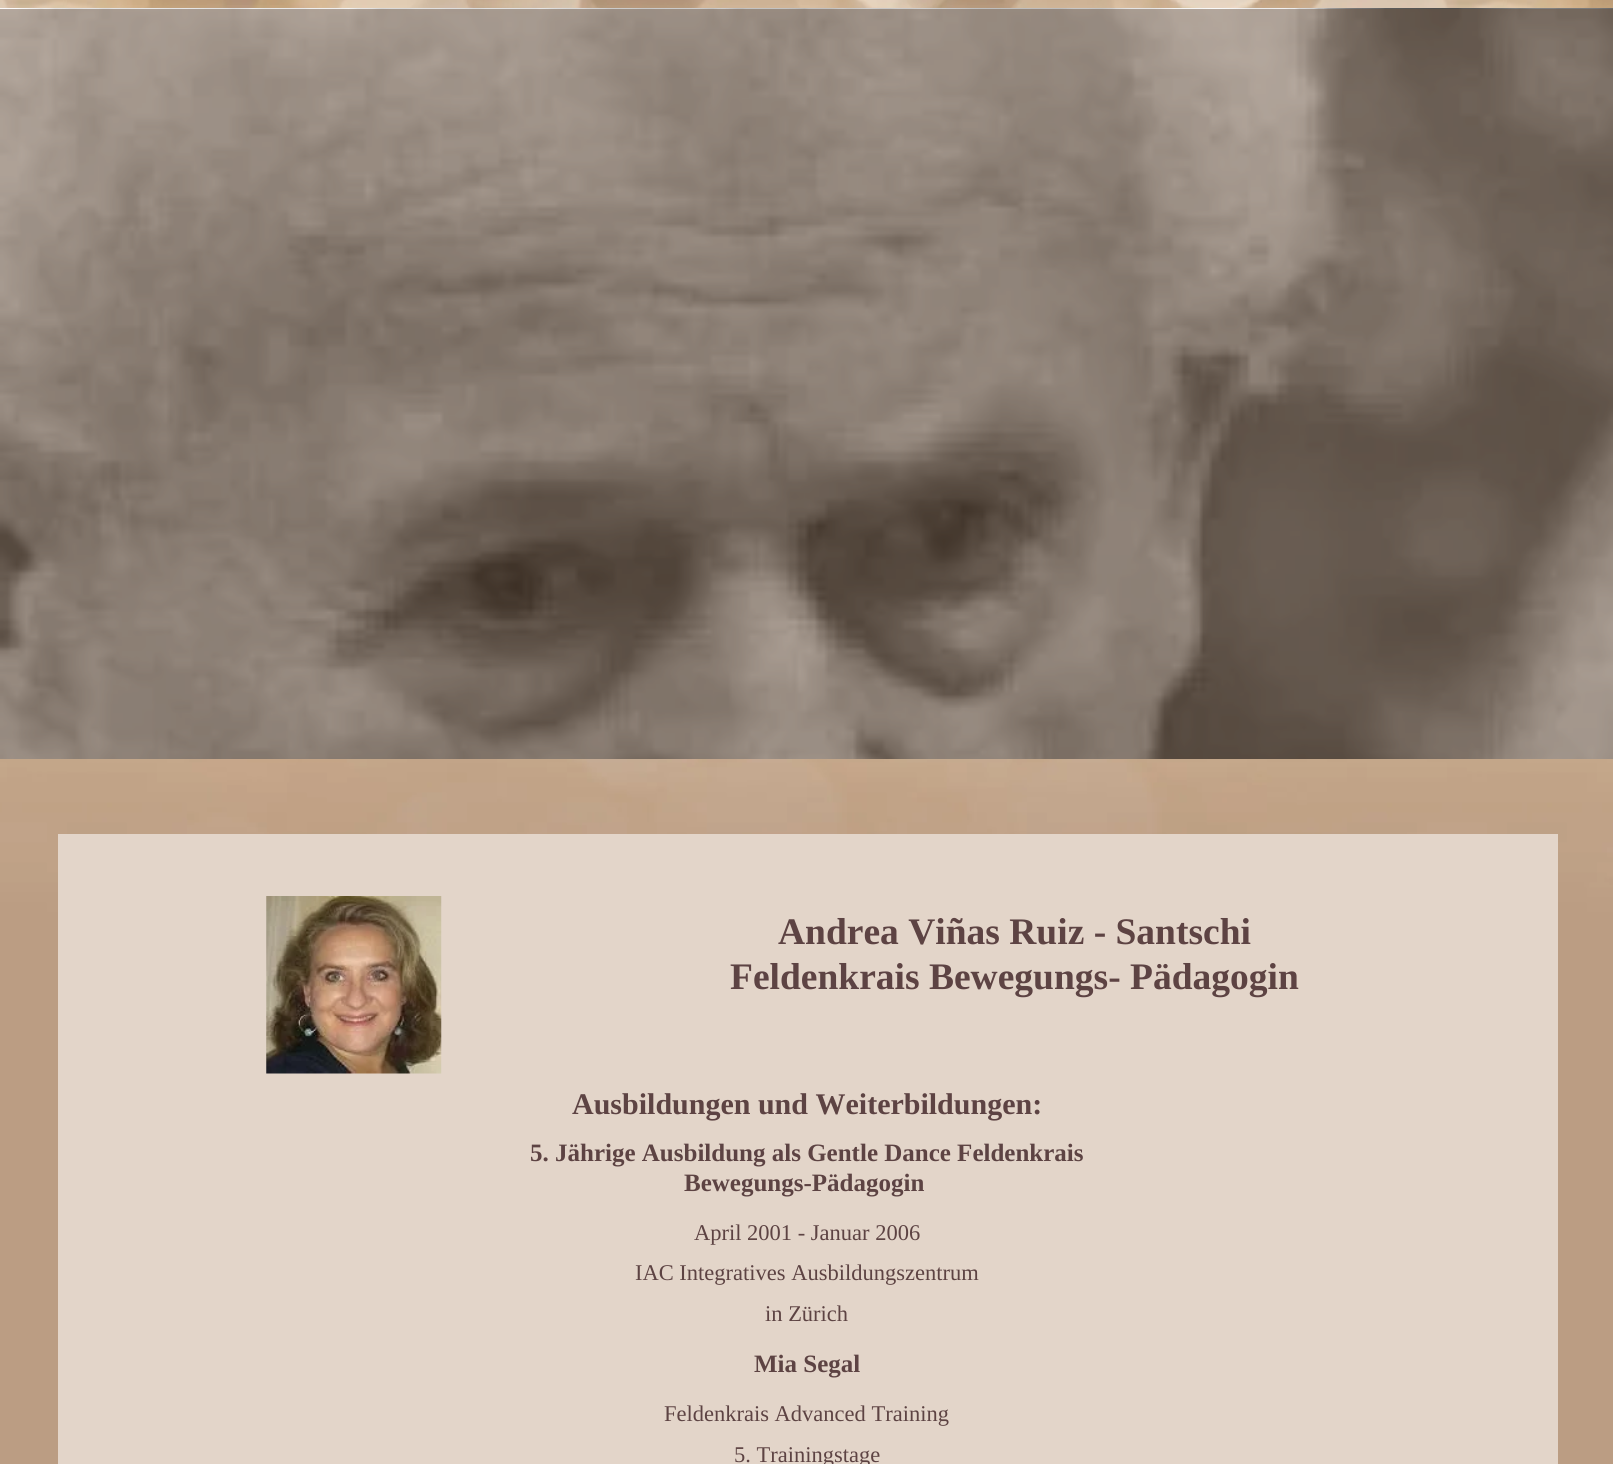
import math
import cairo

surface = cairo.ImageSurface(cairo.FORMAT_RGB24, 1613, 1464)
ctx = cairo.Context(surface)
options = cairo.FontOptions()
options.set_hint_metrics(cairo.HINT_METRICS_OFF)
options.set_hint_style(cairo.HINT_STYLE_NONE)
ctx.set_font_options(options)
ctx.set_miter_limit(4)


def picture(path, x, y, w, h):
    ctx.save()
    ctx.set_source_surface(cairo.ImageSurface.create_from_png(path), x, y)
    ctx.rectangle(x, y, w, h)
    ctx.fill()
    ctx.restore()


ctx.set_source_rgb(1, 1, 1)
ctx.paint()
picture("img1.png", 0, 0, 1613, 1464)
picture("img2.png", 0, 8, 1613, 751)
ctx.set_source_rgb(0.89, 0.835, 0.788)
ctx.rectangle(58, 834, 1500, 630)
ctx.fill()
picture("img3.png", 266, 896, 176, 178)
ctx.select_font_face("Liberation Serif", cairo.FONT_SLANT_NORMAL, cairo.FONT_WEIGHT_BOLD)
ctx.set_font_size(37.5)
ctx.set_source_rgb(0.365, 0.263, 0.263)
ctx.move_to(778, 944)
ctx.show_text("Andrea Viñas Ruiz - Santschi")
ctx.move_to(730, 989)
ctx.show_text("Feldenkrais Bewegungs- Pädagogin")
ctx.set_font_size(30)
ctx.move_to(572, 1114)
ctx.show_text("Ausbildungen und Weiterbildungen:")
ctx.set_font_size(25)
ctx.move_to(530, 1161)
ctx.show_text("5. Jährige Ausbildung als Gentle Dance Feldenkrais")
ctx.move_to(684, 1191)
ctx.show_text("Bewegungs-Pädagogin")
ctx.select_font_face("Liberation Serif")
ctx.set_font_size(22.5)
ctx.move_to(694, 1240)
ctx.show_text("April 2001 - Januar 2006")
ctx.move_to(635, 1280)
ctx.show_text("IAC Integratives Ausbildungszentrum")
ctx.move_to(765, 1321)
ctx.show_text("in Zürich")
ctx.select_font_face("Liberation Serif", cairo.FONT_SLANT_NORMAL, cairo.FONT_WEIGHT_BOLD)
ctx.set_font_size(25)
ctx.move_to(754, 1372)
ctx.show_text("Mia Segal")
ctx.select_font_face("Liberation Serif")
ctx.set_font_size(22.5)
ctx.move_to(664, 1421)
ctx.show_text("Feldenkrais Advanced Training")
ctx.move_to(734, 1462)
ctx.show_text("5. Trainingstage")
surface.write_to_png("page.png")
